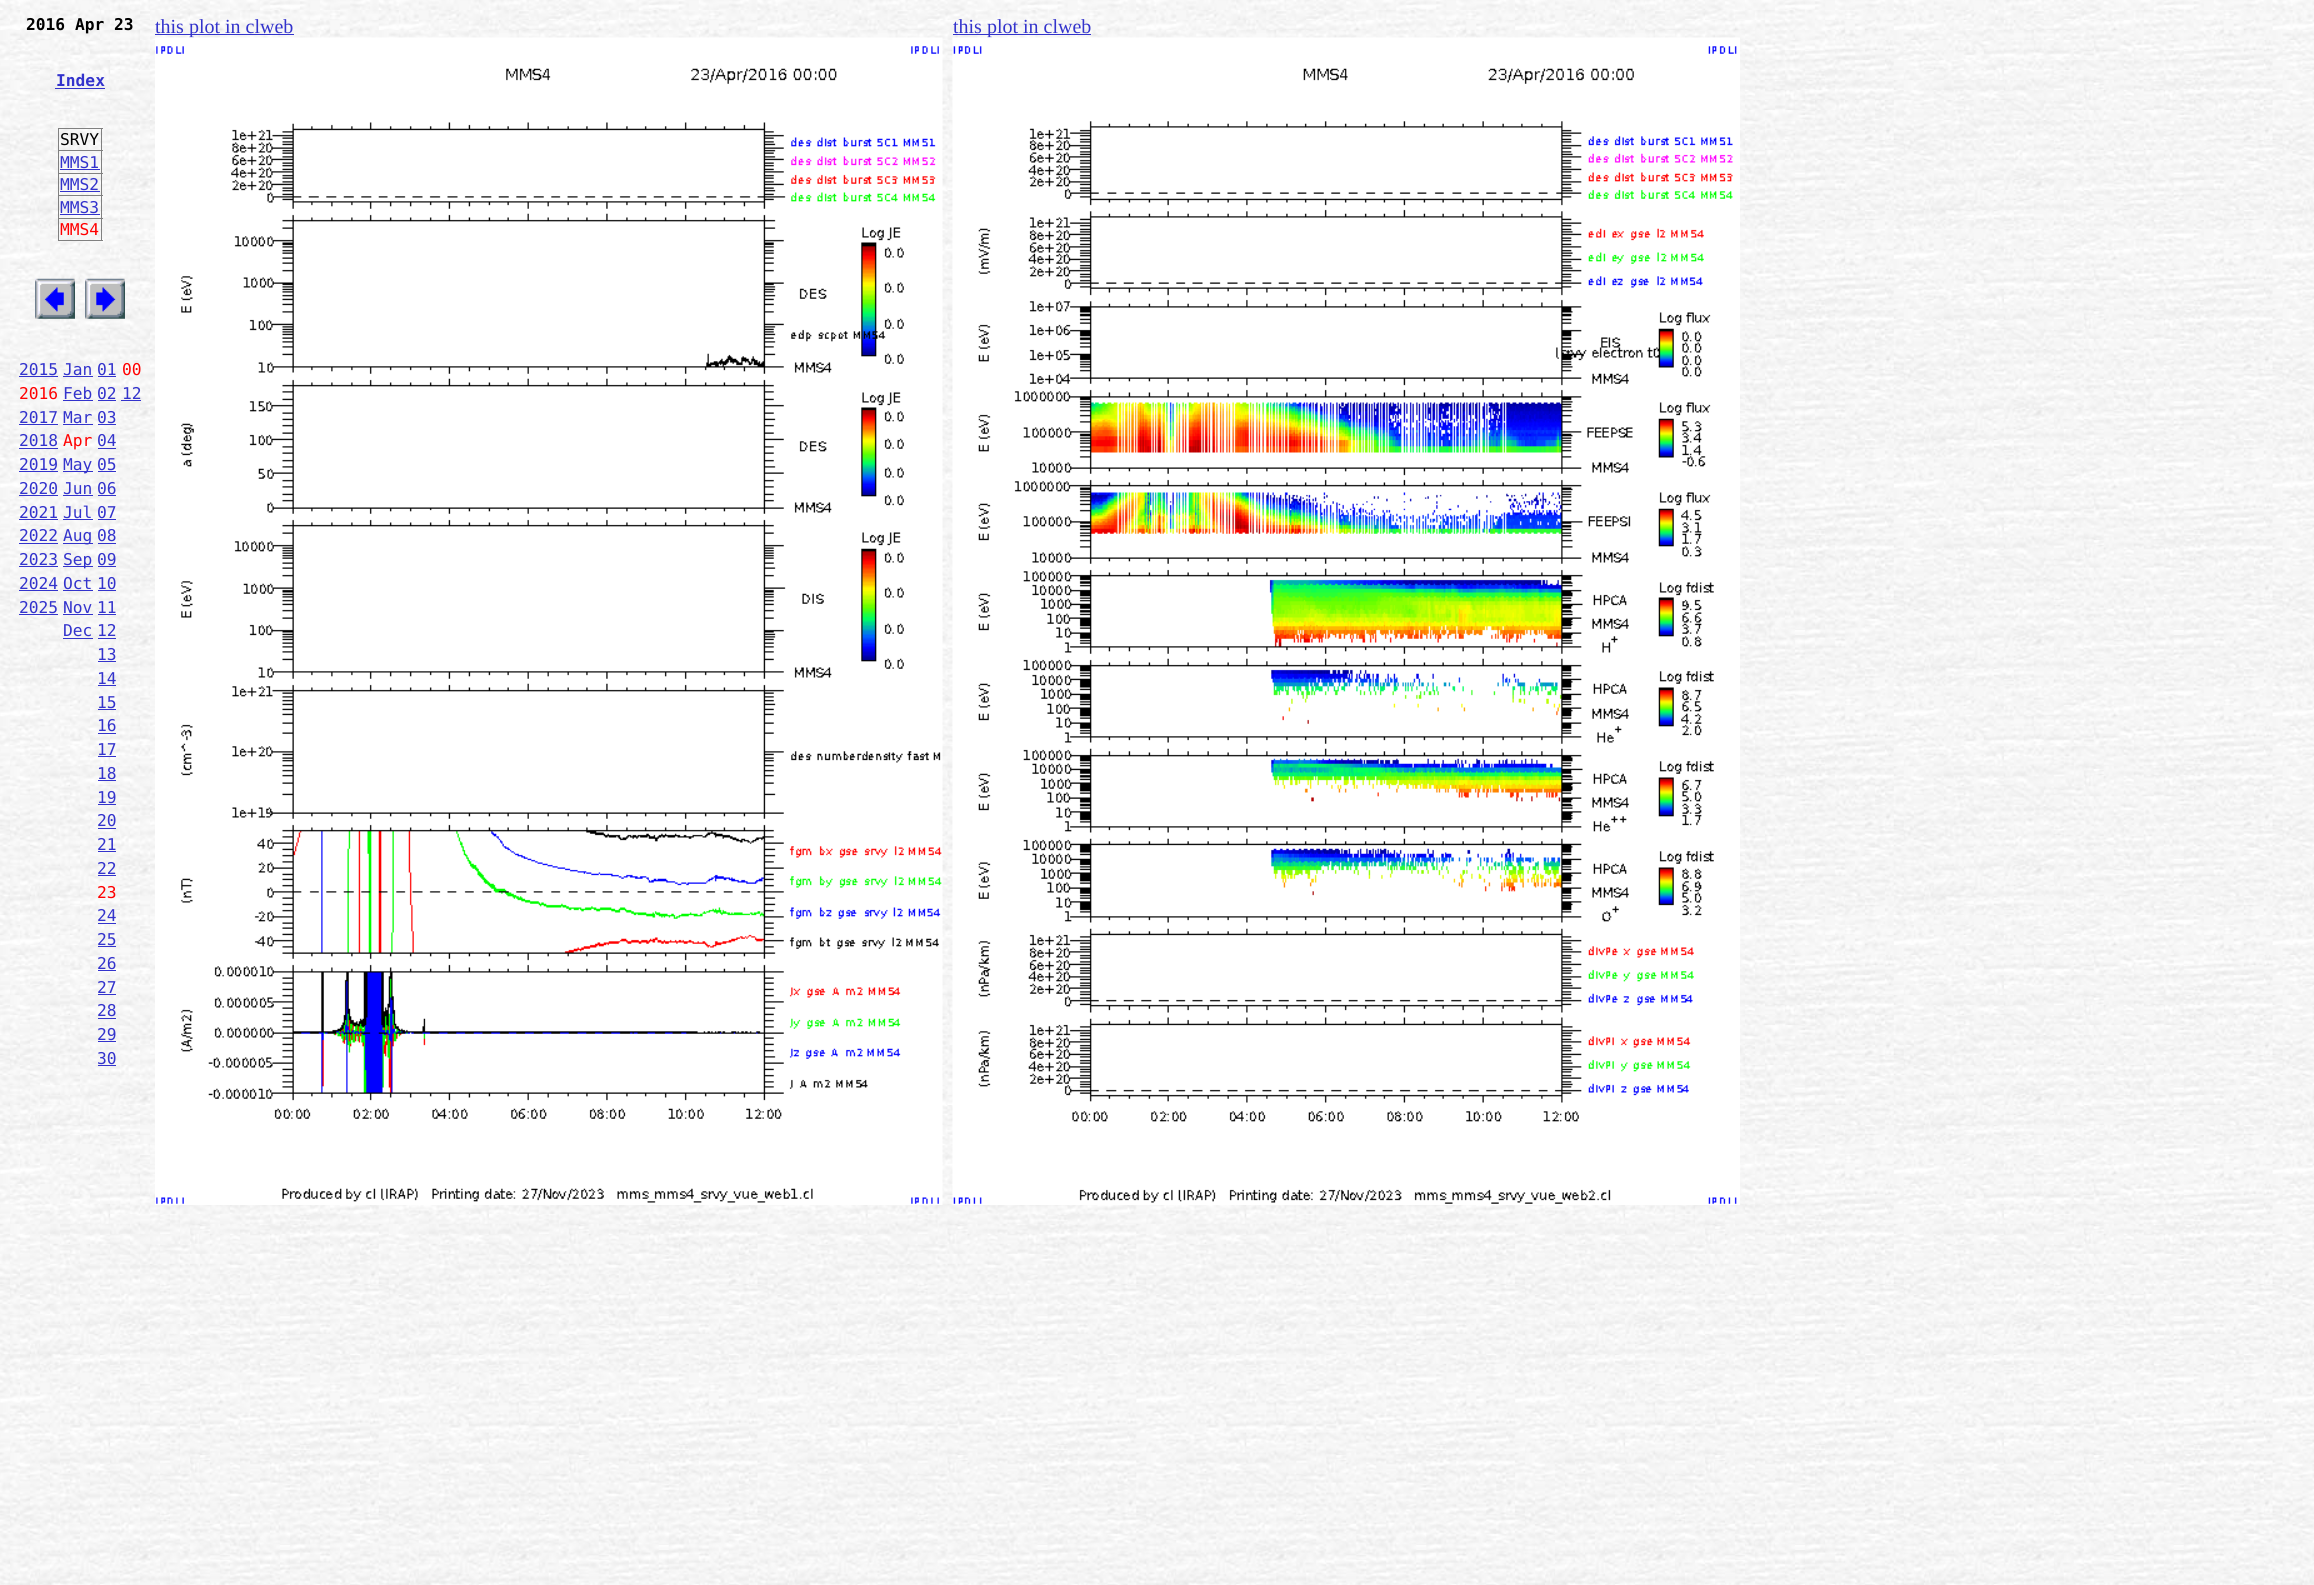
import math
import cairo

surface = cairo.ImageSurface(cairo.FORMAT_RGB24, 2314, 1585)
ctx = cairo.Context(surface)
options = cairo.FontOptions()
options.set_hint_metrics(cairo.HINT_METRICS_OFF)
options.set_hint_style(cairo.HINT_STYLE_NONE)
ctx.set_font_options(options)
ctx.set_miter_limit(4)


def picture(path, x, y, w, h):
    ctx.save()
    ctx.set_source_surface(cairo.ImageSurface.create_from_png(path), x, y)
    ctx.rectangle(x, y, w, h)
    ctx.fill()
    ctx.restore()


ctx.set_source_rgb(1, 1, 1)
ctx.paint()
picture("img1.png", 0, 0, 2314, 1585)
ctx.select_font_face("DejaVu Sans Mono", cairo.FONT_SLANT_NORMAL, cairo.FONT_WEIGHT_BOLD)
ctx.set_font_size(16.25)
ctx.set_source_rgb(0, 0, 0)
ctx.move_to(26, 30)
ctx.show_text("2016 Apr 23")
ctx.set_source_rgb(0.2, 0.2, 0.8)
ctx.move_to(56, 86)
ctx.show_text("Index")
ctx.rectangle(55, 88, 50, 1)
ctx.fill()
ctx.set_source_rgb(0.502, 0.502, 0.502)
ctx.rectangle(58, 128, 45, 1)
ctx.fill()
ctx.rectangle(101, 128, 1, 113)
ctx.fill()
ctx.rectangle(58, 240, 45, 1)
ctx.fill()
ctx.rectangle(58, 128, 1, 113)
ctx.fill()
ctx.select_font_face("DejaVu Sans Mono")
ctx.set_source_rgb(0, 0, 0)
ctx.move_to(60, 145)
ctx.show_text("SRVY")
ctx.set_source_rgb(0.502, 0.502, 0.502)
ctx.rectangle(58, 150, 45, 1)
ctx.fill()
ctx.set_source_rgb(0.2, 0.2, 0.8)
ctx.move_to(60, 168)
ctx.show_text("MMS1")
ctx.rectangle(60, 169, 40, 1)
ctx.fill()
ctx.set_source_rgb(0.502, 0.502, 0.502)
ctx.rectangle(58, 173, 45, 1)
ctx.fill()
ctx.set_source_rgb(0.2, 0.2, 0.8)
ctx.move_to(60, 190)
ctx.show_text("MMS2")
ctx.rectangle(60, 191, 40, 1)
ctx.fill()
ctx.set_source_rgb(0.502, 0.502, 0.502)
ctx.rectangle(58, 195, 45, 1)
ctx.fill()
ctx.set_source_rgb(0.2, 0.2, 0.8)
ctx.move_to(60, 213)
ctx.show_text("MMS3")
ctx.rectangle(60, 214, 40, 1)
ctx.fill()
ctx.set_source_rgb(0.502, 0.502, 0.502)
ctx.rectangle(58, 218, 45, 1)
ctx.fill()
ctx.set_source_rgb(1, 0, 0)
ctx.move_to(60, 235)
ctx.show_text("MMS4")
picture("img2.png", 35, 278, 40, 41)
picture("img3.png", 85, 278, 40, 41)
ctx.set_source_rgb(0.2, 0.2, 0.8)
ctx.move_to(19, 375)
ctx.show_text("2015")
ctx.rectangle(19, 376, 39, 1)
ctx.fill()
ctx.move_to(63, 375)
ctx.show_text("Jan")
ctx.rectangle(63, 376, 30, 1)
ctx.fill()
ctx.move_to(97, 375)
ctx.show_text("01")
ctx.rectangle(98, 376, 18, 1)
ctx.fill()
ctx.set_source_rgb(1, 0, 0)
ctx.move_to(122, 375)
ctx.show_text("00")
ctx.move_to(19, 399)
ctx.show_text("2016")
ctx.set_source_rgb(0.2, 0.2, 0.8)
ctx.move_to(63, 399)
ctx.show_text("Feb")
ctx.rectangle(63, 400, 30, 1)
ctx.fill()
ctx.move_to(97, 399)
ctx.show_text("02")
ctx.rectangle(98, 400, 18, 1)
ctx.fill()
ctx.move_to(122, 399)
ctx.show_text("12")
ctx.rectangle(121, 400, 20, 1)
ctx.fill()
ctx.move_to(19, 423)
ctx.show_text("2017")
ctx.rectangle(19, 424, 39, 1)
ctx.fill()
ctx.move_to(63, 423)
ctx.show_text("Mar")
ctx.rectangle(63, 424, 30, 1)
ctx.fill()
ctx.move_to(97, 423)
ctx.show_text("03")
ctx.rectangle(98, 424, 18, 1)
ctx.fill()
ctx.move_to(19, 446)
ctx.show_text("2018")
ctx.rectangle(19, 448, 39, 1)
ctx.fill()
ctx.set_source_rgb(1, 0, 0)
ctx.move_to(63, 446)
ctx.show_text("Apr")
ctx.set_source_rgb(0.2, 0.2, 0.8)
ctx.move_to(97, 446)
ctx.show_text("04")
ctx.rectangle(98, 448, 18, 1)
ctx.fill()
ctx.move_to(19, 470)
ctx.show_text("2019")
ctx.rectangle(19, 471, 39, 1)
ctx.fill()
ctx.rectangle(63, 471, 30, 1)
ctx.fill()
ctx.move_to(63, 470)
ctx.show_text("May")
ctx.move_to(97, 470)
ctx.show_text("05")
ctx.rectangle(98, 471, 18, 1)
ctx.fill()
ctx.move_to(19, 494)
ctx.show_text("2020")
ctx.rectangle(19, 495, 39, 1)
ctx.fill()
ctx.move_to(63, 494)
ctx.show_text("Jun")
ctx.rectangle(63, 495, 30, 1)
ctx.fill()
ctx.move_to(97, 494)
ctx.show_text("06")
ctx.rectangle(98, 495, 18, 1)
ctx.fill()
ctx.move_to(19, 518)
ctx.show_text("2021")
ctx.rectangle(19, 519, 39, 1)
ctx.fill()
ctx.move_to(63, 518)
ctx.show_text("Jul")
ctx.rectangle(63, 519, 30, 1)
ctx.fill()
ctx.move_to(97, 518)
ctx.show_text("07")
ctx.rectangle(98, 519, 18, 1)
ctx.fill()
ctx.move_to(19, 541)
ctx.show_text("2022")
ctx.rectangle(19, 543, 39, 1)
ctx.fill()
ctx.rectangle(63, 543, 30, 1)
ctx.fill()
ctx.move_to(63, 541)
ctx.show_text("Aug")
ctx.move_to(97, 541)
ctx.show_text("08")
ctx.rectangle(98, 543, 18, 1)
ctx.fill()
ctx.move_to(19, 565)
ctx.show_text("2023")
ctx.rectangle(19, 566, 39, 1)
ctx.fill()
ctx.rectangle(63, 566, 30, 1)
ctx.fill()
ctx.move_to(63, 565)
ctx.show_text("Sep")
ctx.move_to(97, 565)
ctx.show_text("09")
ctx.rectangle(98, 566, 18, 1)
ctx.fill()
ctx.move_to(19, 589)
ctx.show_text("2024")
ctx.rectangle(19, 590, 39, 1)
ctx.fill()
ctx.move_to(63, 589)
ctx.show_text("Oct")
ctx.rectangle(63, 590, 30, 1)
ctx.fill()
ctx.move_to(97, 589)
ctx.show_text("10")
ctx.rectangle(98, 590, 18, 1)
ctx.fill()
ctx.move_to(19, 613)
ctx.show_text("2025")
ctx.rectangle(19, 614, 39, 1)
ctx.fill()
ctx.move_to(63, 613)
ctx.show_text("Nov")
ctx.rectangle(63, 614, 30, 1)
ctx.fill()
ctx.move_to(97, 613)
ctx.show_text("11")
ctx.rectangle(98, 614, 18, 1)
ctx.fill()
ctx.move_to(63, 636)
ctx.show_text("Dec")
ctx.rectangle(63, 638, 30, 1)
ctx.fill()
ctx.move_to(97, 636)
ctx.show_text("12")
ctx.rectangle(98, 638, 18, 1)
ctx.fill()
ctx.move_to(97, 660)
ctx.show_text("13")
ctx.rectangle(98, 661, 18, 1)
ctx.fill()
ctx.move_to(97, 684)
ctx.show_text("14")
ctx.rectangle(98, 685, 18, 1)
ctx.fill()
ctx.move_to(97, 708)
ctx.show_text("15")
ctx.rectangle(98, 709, 18, 1)
ctx.fill()
ctx.move_to(97, 731)
ctx.show_text("16")
ctx.rectangle(98, 733, 18, 1)
ctx.fill()
ctx.move_to(97, 755)
ctx.show_text("17")
ctx.rectangle(98, 756, 18, 1)
ctx.fill()
ctx.move_to(97, 779)
ctx.show_text("18")
ctx.rectangle(98, 780, 18, 1)
ctx.fill()
ctx.move_to(97, 803)
ctx.show_text("19")
ctx.rectangle(98, 804, 18, 1)
ctx.fill()
ctx.move_to(97, 826)
ctx.show_text("20")
ctx.rectangle(98, 828, 18, 1)
ctx.fill()
ctx.move_to(97, 850)
ctx.show_text("21")
ctx.rectangle(98, 851, 18, 1)
ctx.fill()
ctx.move_to(97, 874)
ctx.show_text("22")
ctx.rectangle(98, 875, 18, 1)
ctx.fill()
ctx.set_source_rgb(1, 0, 0)
ctx.move_to(97, 898)
ctx.show_text("23")
ctx.set_source_rgb(0.2, 0.2, 0.8)
ctx.move_to(97, 921)
ctx.show_text("24")
ctx.rectangle(98, 923, 18, 1)
ctx.fill()
ctx.move_to(97, 945)
ctx.show_text("25")
ctx.rectangle(98, 946, 18, 1)
ctx.fill()
ctx.move_to(97, 969)
ctx.show_text("26")
ctx.rectangle(98, 970, 18, 1)
ctx.fill()
ctx.move_to(97, 993)
ctx.show_text("27")
ctx.rectangle(98, 994, 18, 1)
ctx.fill()
ctx.move_to(97, 1016)
ctx.show_text("28")
ctx.rectangle(98, 1018, 18, 1)
ctx.fill()
ctx.move_to(97, 1040)
ctx.show_text("29")
ctx.rectangle(98, 1041, 18, 1)
ctx.fill()
ctx.move_to(97, 1064)
ctx.show_text("30")
ctx.rectangle(98, 1065, 18, 1)
ctx.fill()
ctx.rectangle(155, 34, 139, 1)
ctx.fill()
ctx.select_font_face("Liberation Serif")
ctx.set_font_size(20)
ctx.move_to(155, 33)
ctx.show_text("this plot in clweb")
picture("img4.png", 155, 37, 788, 1168)
ctx.rectangle(953, 34, 138, 1)
ctx.fill()
ctx.move_to(953, 33)
ctx.show_text("this plot in clweb")
picture("img5.png", 952, 37, 788, 1168)
surface.write_to_png("page.png")
